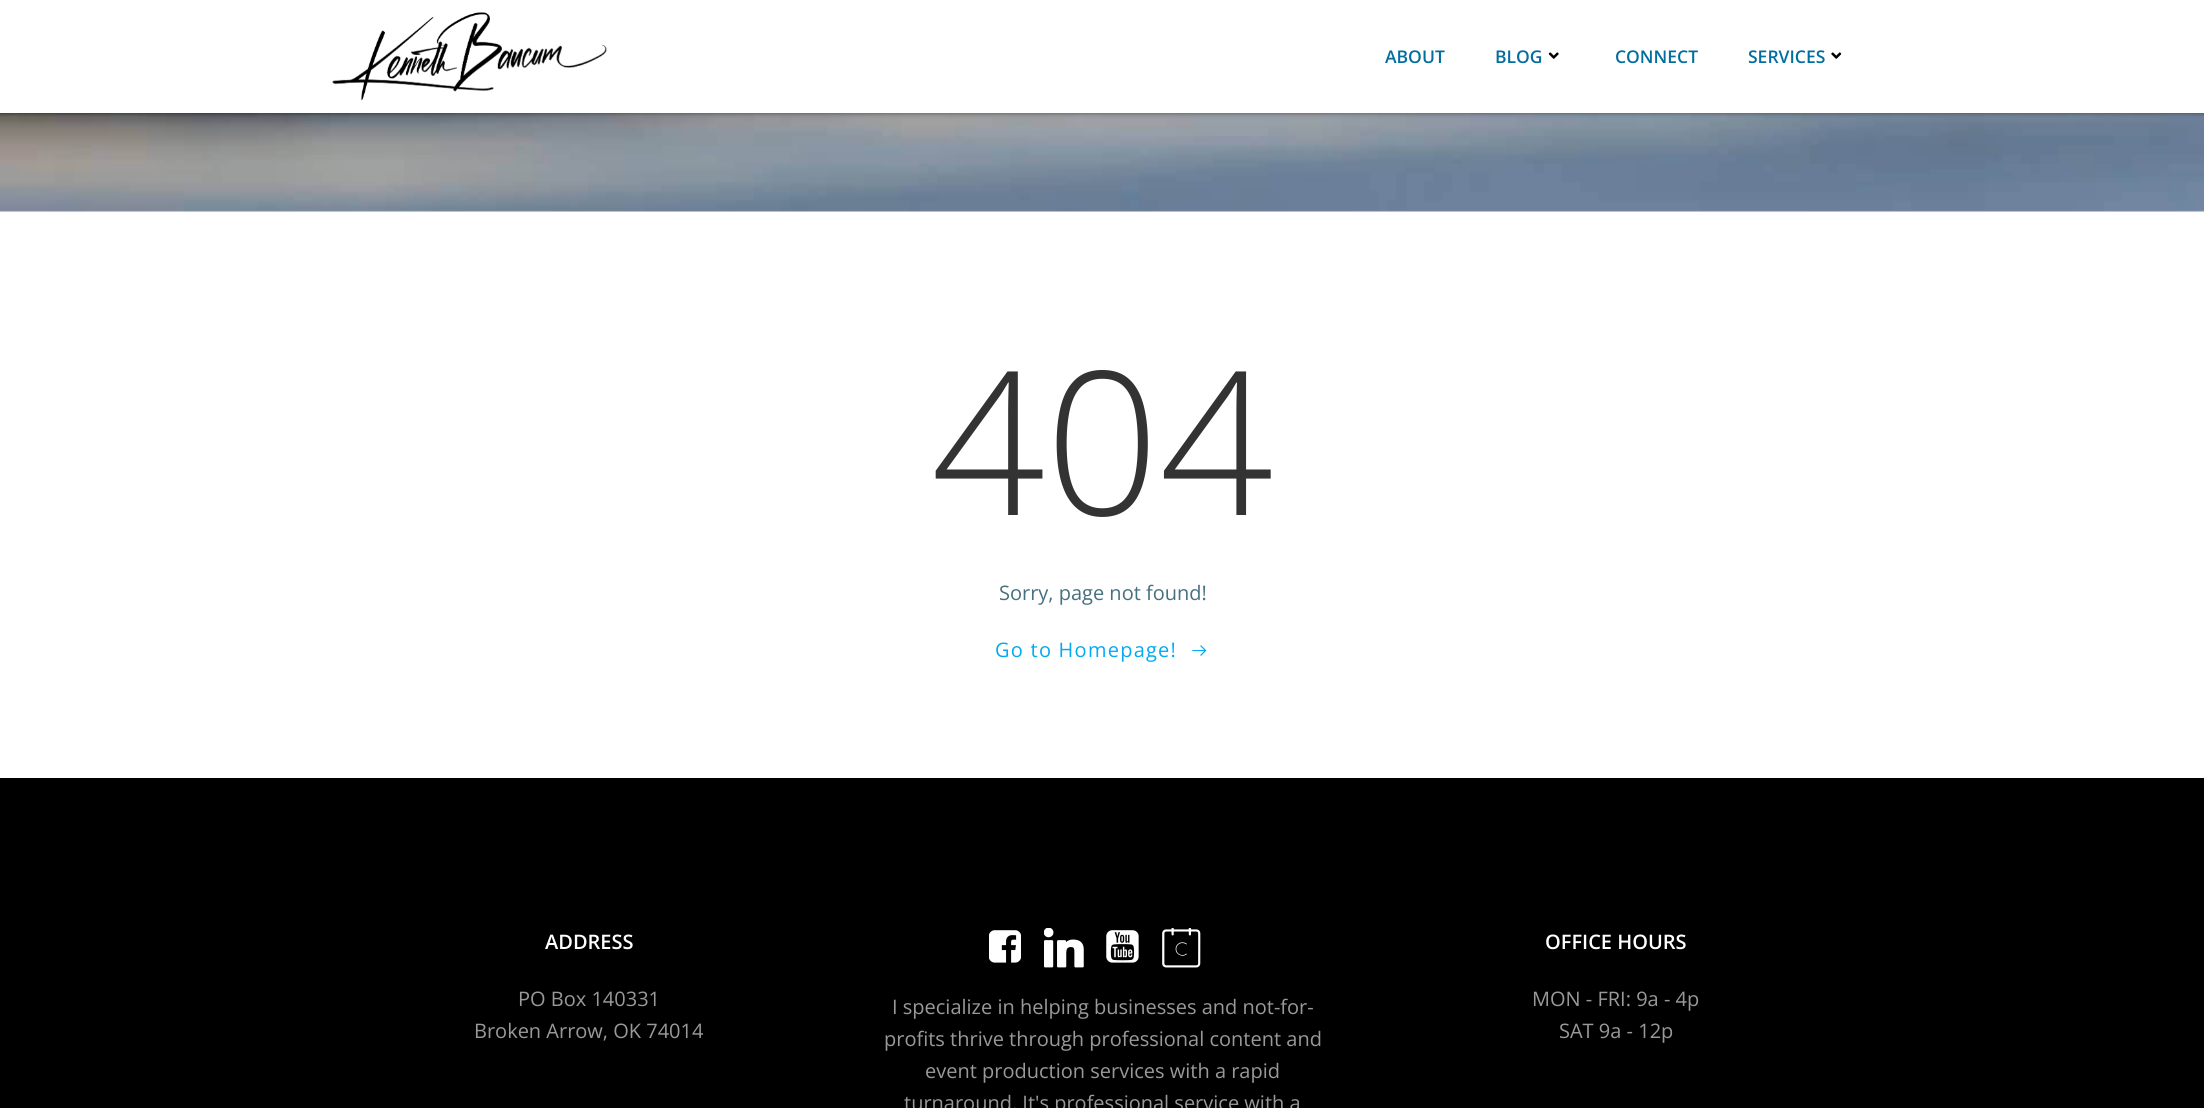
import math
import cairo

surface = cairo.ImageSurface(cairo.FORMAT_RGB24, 2204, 1108)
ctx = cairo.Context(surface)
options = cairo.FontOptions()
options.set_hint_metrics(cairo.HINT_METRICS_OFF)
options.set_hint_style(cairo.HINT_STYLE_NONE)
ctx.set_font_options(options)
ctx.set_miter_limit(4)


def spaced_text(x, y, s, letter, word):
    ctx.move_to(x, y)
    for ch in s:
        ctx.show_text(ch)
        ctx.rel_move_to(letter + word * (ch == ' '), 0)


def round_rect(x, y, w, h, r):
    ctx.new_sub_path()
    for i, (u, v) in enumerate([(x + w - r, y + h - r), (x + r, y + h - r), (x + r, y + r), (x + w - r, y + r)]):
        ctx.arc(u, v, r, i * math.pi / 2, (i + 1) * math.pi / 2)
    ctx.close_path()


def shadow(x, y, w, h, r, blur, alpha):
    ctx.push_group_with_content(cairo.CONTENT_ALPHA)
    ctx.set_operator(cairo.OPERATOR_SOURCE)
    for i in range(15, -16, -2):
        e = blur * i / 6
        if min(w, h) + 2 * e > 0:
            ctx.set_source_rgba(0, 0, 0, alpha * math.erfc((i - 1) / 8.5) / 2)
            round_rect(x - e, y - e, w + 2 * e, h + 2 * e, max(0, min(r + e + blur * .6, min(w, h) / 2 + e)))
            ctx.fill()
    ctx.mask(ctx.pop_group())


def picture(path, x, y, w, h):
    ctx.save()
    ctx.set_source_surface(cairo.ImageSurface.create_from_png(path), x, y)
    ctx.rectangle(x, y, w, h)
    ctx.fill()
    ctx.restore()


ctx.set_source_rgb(1, 1, 1)
ctx.paint()
picture("img4.png", 0, 113, 2204, 99)
ctx.set_source_rgb(0, 0, 0)
shadow(0, 0, 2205, 113, 0, 2.5, 0.5)
ctx.set_source_rgb(1, 1, 1)
ctx.rectangle(0, 0, 2204, 113)
ctx.fill()
picture("img1.png", 332, 12, 275, 88)
ctx.select_font_face("Open Sans SemiBold")
ctx.set_font_size(17.5)
ctx.set_source_rgb(0.008, 0.431, 0.624)
ctx.move_to(1385, 63)
ctx.show_text("ABOUT")
ctx.move_to(1495, 63)
ctx.show_text("BLOG")
picture("img2.png", 1548, 52, 11, 7)
ctx.move_to(1615, 63)
ctx.show_text("CONNECT")
ctx.move_to(1748, 63)
ctx.show_text("SERVICES")
picture("img3.png", 1831, 52, 11, 7)
ctx.select_font_face("Open Sans Light")
ctx.set_font_size(200)
ctx.set_source_rgb(0.2, 0.2, 0.2)
ctx.move_to(931, 515)
ctx.show_text("404")
ctx.select_font_face("Open Sans")
ctx.set_font_size(20)
ctx.set_source_rgb(0.275, 0.439, 0.498)
ctx.move_to(999, 600)
ctx.show_text("Sorry, page not found!")
ctx.set_source_rgb(0.012, 0.663, 0.957)
spaced_text(995, 657, "Go to Homepage!", 1.25, 0)
picture("img5.png", 1192, 645, 15, 11)
ctx.set_source_rgb(0, 0, 0)
ctx.rectangle(0, 778, 2204, 330)
ctx.fill()
ctx.select_font_face("Open Sans SemiBold")
ctx.set_source_rgb(1, 1, 1)
ctx.move_to(545, 949)
ctx.show_text("ADDRESS")
ctx.select_font_face("Open Sans")
ctx.set_source_rgb(0.6, 0.6, 0.6)
ctx.move_to(518, 1006)
ctx.show_text("PO Box 140331")
ctx.move_to(474, 1038)
ctx.show_text("Broken Arrow, OK 74014")
picture("img6.png", 989, 930, 32, 33)
picture("img7.png", 1044, 928, 40, 40)
picture("img8.png", 1106, 930, 33, 33)
picture("img9.png", 1162, 928, 39, 40)
ctx.move_to(892, 1014)
ctx.show_text("I specialize in helping businesses and not-for-")
ctx.move_to(884, 1046)
ctx.show_text("profits thrive through professional content and")
ctx.move_to(925, 1078)
ctx.show_text("event production services with a rapid")
ctx.move_to(904, 1110)
ctx.show_text("turnaround. It's professional service with a")
ctx.select_font_face("Open Sans SemiBold")
ctx.set_source_rgb(1, 1, 1)
ctx.move_to(1545, 949)
ctx.show_text("OFFICE HOURS")
ctx.select_font_face("Open Sans")
ctx.set_source_rgb(0.6, 0.6, 0.6)
ctx.move_to(1532, 1006)
ctx.show_text("MON - FRI: 9a - 4p")
ctx.move_to(1559, 1038)
ctx.show_text("SAT 9a - 12p")
surface.write_to_png("page.png")
